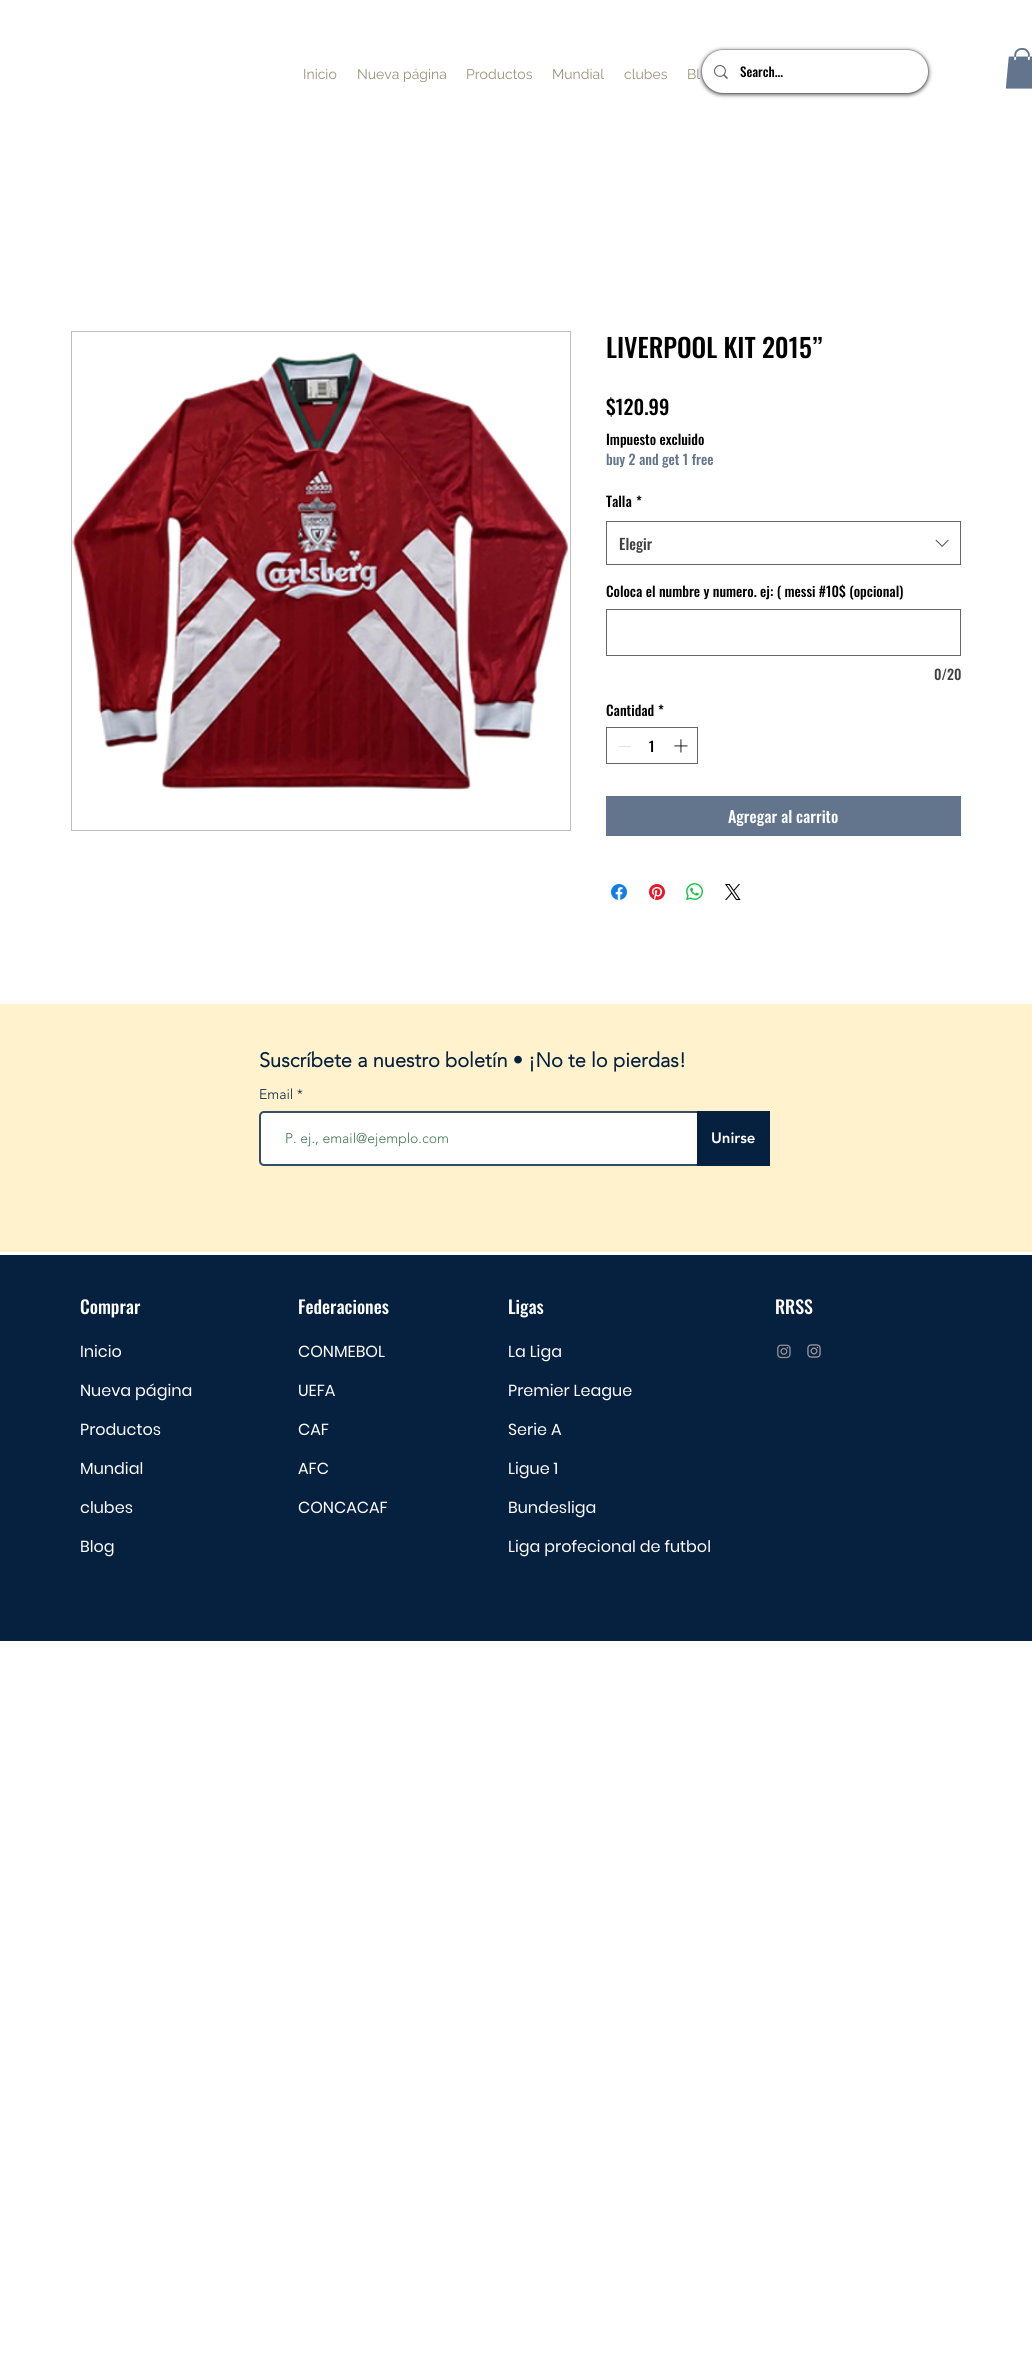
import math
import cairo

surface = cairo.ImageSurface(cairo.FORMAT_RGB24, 1032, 2367)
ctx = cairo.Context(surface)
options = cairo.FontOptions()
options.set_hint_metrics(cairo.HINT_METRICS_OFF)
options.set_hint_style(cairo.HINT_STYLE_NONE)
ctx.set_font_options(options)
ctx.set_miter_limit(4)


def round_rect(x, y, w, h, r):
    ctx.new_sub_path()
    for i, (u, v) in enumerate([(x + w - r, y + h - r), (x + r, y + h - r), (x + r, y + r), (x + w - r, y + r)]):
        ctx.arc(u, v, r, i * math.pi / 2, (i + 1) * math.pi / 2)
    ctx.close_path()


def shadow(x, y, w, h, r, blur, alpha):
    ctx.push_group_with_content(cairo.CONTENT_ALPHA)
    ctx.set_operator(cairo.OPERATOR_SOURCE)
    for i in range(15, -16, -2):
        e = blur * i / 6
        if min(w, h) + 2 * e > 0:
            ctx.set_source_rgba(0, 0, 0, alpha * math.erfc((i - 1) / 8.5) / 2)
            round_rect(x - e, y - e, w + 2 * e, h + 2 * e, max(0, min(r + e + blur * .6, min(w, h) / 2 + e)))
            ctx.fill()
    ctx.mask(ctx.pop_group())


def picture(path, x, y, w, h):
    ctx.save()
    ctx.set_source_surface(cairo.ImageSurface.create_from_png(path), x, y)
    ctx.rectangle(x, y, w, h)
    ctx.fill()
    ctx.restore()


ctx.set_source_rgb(1, 1, 1)
ctx.paint()
ctx.select_font_face("Raleway")
ctx.set_font_size(14)
ctx.set_source_rgb(0.6, 0.569, 0.478)
ctx.move_to(303, 79)
ctx.show_text("Inicio")
ctx.move_to(357, 79)
ctx.show_text("Nueva página")
ctx.move_to(466, 79)
ctx.show_text("Productos")
ctx.move_to(552, 79)
ctx.show_text("Mundial")
ctx.move_to(624, 79)
ctx.show_text("clubes")
ctx.move_to(687, 79)
ctx.show_text("Bl")
picture("img1.png", 1005, 48, 27, 41)
ctx.set_source_rgb(0, 0, 0)
shadow(701, 50, 228, 45, 22.5, 2, 0.6)
round_rect(701.5, 49.5, 227, 44, 22)
ctx.set_source_rgba(0, 0, 0, 0.14)
ctx.set_line_width(1)
ctx.stroke()
ctx.set_source_rgb(1, 1, 1)
round_rect(702, 50, 226, 43, 21.5)
ctx.fill()
picture("img2.png", 714, 65, 14, 14)
ctx.select_font_face("Oswald Medium")
ctx.set_font_size(13)
ctx.set_source_rgb(0, 0, 0)
ctx.move_to(740, 77)
ctx.show_text("Search...")
ctx.rectangle(71.5, 331.5, 499, 499)
ctx.set_source_rgb(0.749, 0.749, 0.749)
ctx.stroke()
picture("img3.png", 72, 352, 497, 438)
ctx.set_font_size(26)
ctx.set_source_rgb(0, 0, 0)
ctx.move_to(606, 358)
ctx.show_text("LIVERPOOL KIT 2015”")
ctx.set_font_size(20)
ctx.move_to(606, 415)
ctx.show_text("$120.99")
ctx.set_font_size(14)
ctx.move_to(606, 445)
ctx.show_text("Impuesto excluido")
ctx.set_source_rgb(0.384, 0.459, 0.549)
ctx.move_to(606, 465)
ctx.show_text("buy 2 and get 1 free")
ctx.set_source_rgb(0, 0, 0)
ctx.move_to(606, 507)
ctx.show_text("Talla")
ctx.move_to(636, 507)
ctx.show_text("*")
ctx.rectangle(606.5, 521.5, 354, 43)
ctx.set_source_rgb(0.4, 0.4, 0.4)
ctx.stroke()
ctx.set_font_size(15)
ctx.set_source_rgb(0.251, 0.251, 0.251)
ctx.move_to(619, 550)
ctx.show_text("Elegir")
picture("img4.png", 935, 539, 14, 8)
ctx.set_font_size(14)
ctx.set_source_rgb(0, 0, 0)
ctx.move_to(606, 597)
ctx.show_text("Coloca el numbre y numero. ej: ( messi #10$ (opcional)")
ctx.rectangle(606.5, 609.5, 354, 46)
ctx.set_source_rgb(0.4, 0.4, 0.4)
ctx.stroke()
ctx.set_source_rgb(0.251, 0.251, 0.251)
ctx.move_to(934, 680)
ctx.show_text("0/20")
ctx.set_source_rgb(0, 0, 0)
ctx.move_to(606, 716)
ctx.show_text("Cantidad")
ctx.move_to(658, 716)
ctx.show_text("*")
ctx.rectangle(606.5, 727.5, 91, 36)
ctx.set_source_rgb(0.4, 0.4, 0.4)
ctx.stroke()
ctx.set_source_rgb(0.89, 0.89, 0.89)
ctx.rectangle(618, 746, 13, 1)
ctx.fill()
ctx.set_source_rgb(0, 0, 0)
ctx.move_to(649, 752)
ctx.show_text("1")
picture("img5.png", 674, 739, 14, 14)
ctx.set_source_rgb(0.384, 0.459, 0.549)
ctx.rectangle(606, 796, 355, 40)
ctx.fill()
ctx.set_font_size(16)
ctx.set_source_rgb(1, 1, 1)
ctx.move_to(728, 823)
ctx.show_text("Agregar al carrito")
picture("img6.png", 611, 884, 16, 16)
picture("img7.png", 649, 884, 16, 16)
picture("img8.png", 686, 883, 17, 17)
picture("img9.png", 725, 884, 16, 16)
ctx.set_source_rgb(1, 0.949, 0.8)
ctx.rectangle(0, 1004, 1032, 248)
ctx.fill()
ctx.select_font_face("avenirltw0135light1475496", cairo.FONT_SLANT_NORMAL, cairo.FONT_WEIGHT_BOLD)
ctx.set_font_size(20)
ctx.set_source_rgb(0.024, 0.125, 0.247)
ctx.move_to(259, 1067)
ctx.show_text("Suscríbete a nuestro boletín • ¡No te lo pierdas!")
ctx.select_font_face("avenirltw0135light1475496 Light")
ctx.set_font_size(14)
ctx.move_to(259, 1099)
ctx.show_text("Email *")
ctx.set_source_rgb(1, 1, 1)
round_rect(260, 1112, 442, 53, 4)
ctx.fill_preserve()
ctx.set_source_rgb(0.22, 0.298, 0.396)
ctx.set_line_width(2)
ctx.stroke()
ctx.set_source_rgb(0.247, 0.463, 0.322)
ctx.move_to(285, 1143)
ctx.show_text("P. ej., email@ejemplo.com")
ctx.set_source_rgb(0.024, 0.125, 0.247)
ctx.rectangle(697, 1111, 73, 55)
ctx.fill()
ctx.select_font_face("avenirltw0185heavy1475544 Black")
ctx.set_font_size(15)
ctx.set_source_rgb(1, 1, 1)
ctx.move_to(711, 1143)
ctx.show_text("Unirse")
ctx.set_source_rgb(0.024, 0.125, 0.247)
ctx.rectangle(0, 1255, 1032, 386)
ctx.fill()
ctx.select_font_face("Oswald Medium")
ctx.set_font_size(18)
ctx.set_source_rgb(1, 1, 1)
ctx.move_to(80, 1314)
ctx.show_text("Comprar")
ctx.move_to(298, 1314)
ctx.show_text("Federaciones")
ctx.move_to(508, 1314)
ctx.show_text("Ligas")
ctx.move_to(775, 1314)
ctx.show_text("RRSS")
ctx.select_font_face("Poppins")
ctx.set_font_size(16)
ctx.move_to(80, 1357)
ctx.show_text("Inicio")
ctx.move_to(80, 1396)
ctx.show_text("Nueva página")
ctx.move_to(80, 1435)
ctx.show_text("Productos")
ctx.move_to(80, 1474)
ctx.show_text("Mundial")
ctx.move_to(80, 1513)
ctx.show_text("clubes")
ctx.move_to(80, 1552)
ctx.show_text("Blog")
ctx.move_to(298, 1357)
ctx.show_text("CONMEBOL")
ctx.move_to(298, 1396)
ctx.show_text("UEFA")
ctx.move_to(298, 1435)
ctx.show_text("CAF")
ctx.move_to(298, 1474)
ctx.show_text("AFC")
ctx.move_to(298, 1513)
ctx.show_text("CONCACAF")
ctx.move_to(508, 1357)
ctx.show_text("La Liga")
ctx.move_to(508, 1396)
ctx.show_text("Premier League")
ctx.move_to(508, 1435)
ctx.show_text("Serie A")
ctx.move_to(508, 1474)
ctx.show_text("Ligue 1")
ctx.move_to(508, 1513)
ctx.show_text("Bundesliga")
ctx.move_to(508, 1552)
ctx.show_text("Liga profecional de futbol")
picture("img10.png", 777, 1344, 14, 15)
picture("img11.png", 807, 1344, 14, 14)
surface.write_to_png("page.png")
